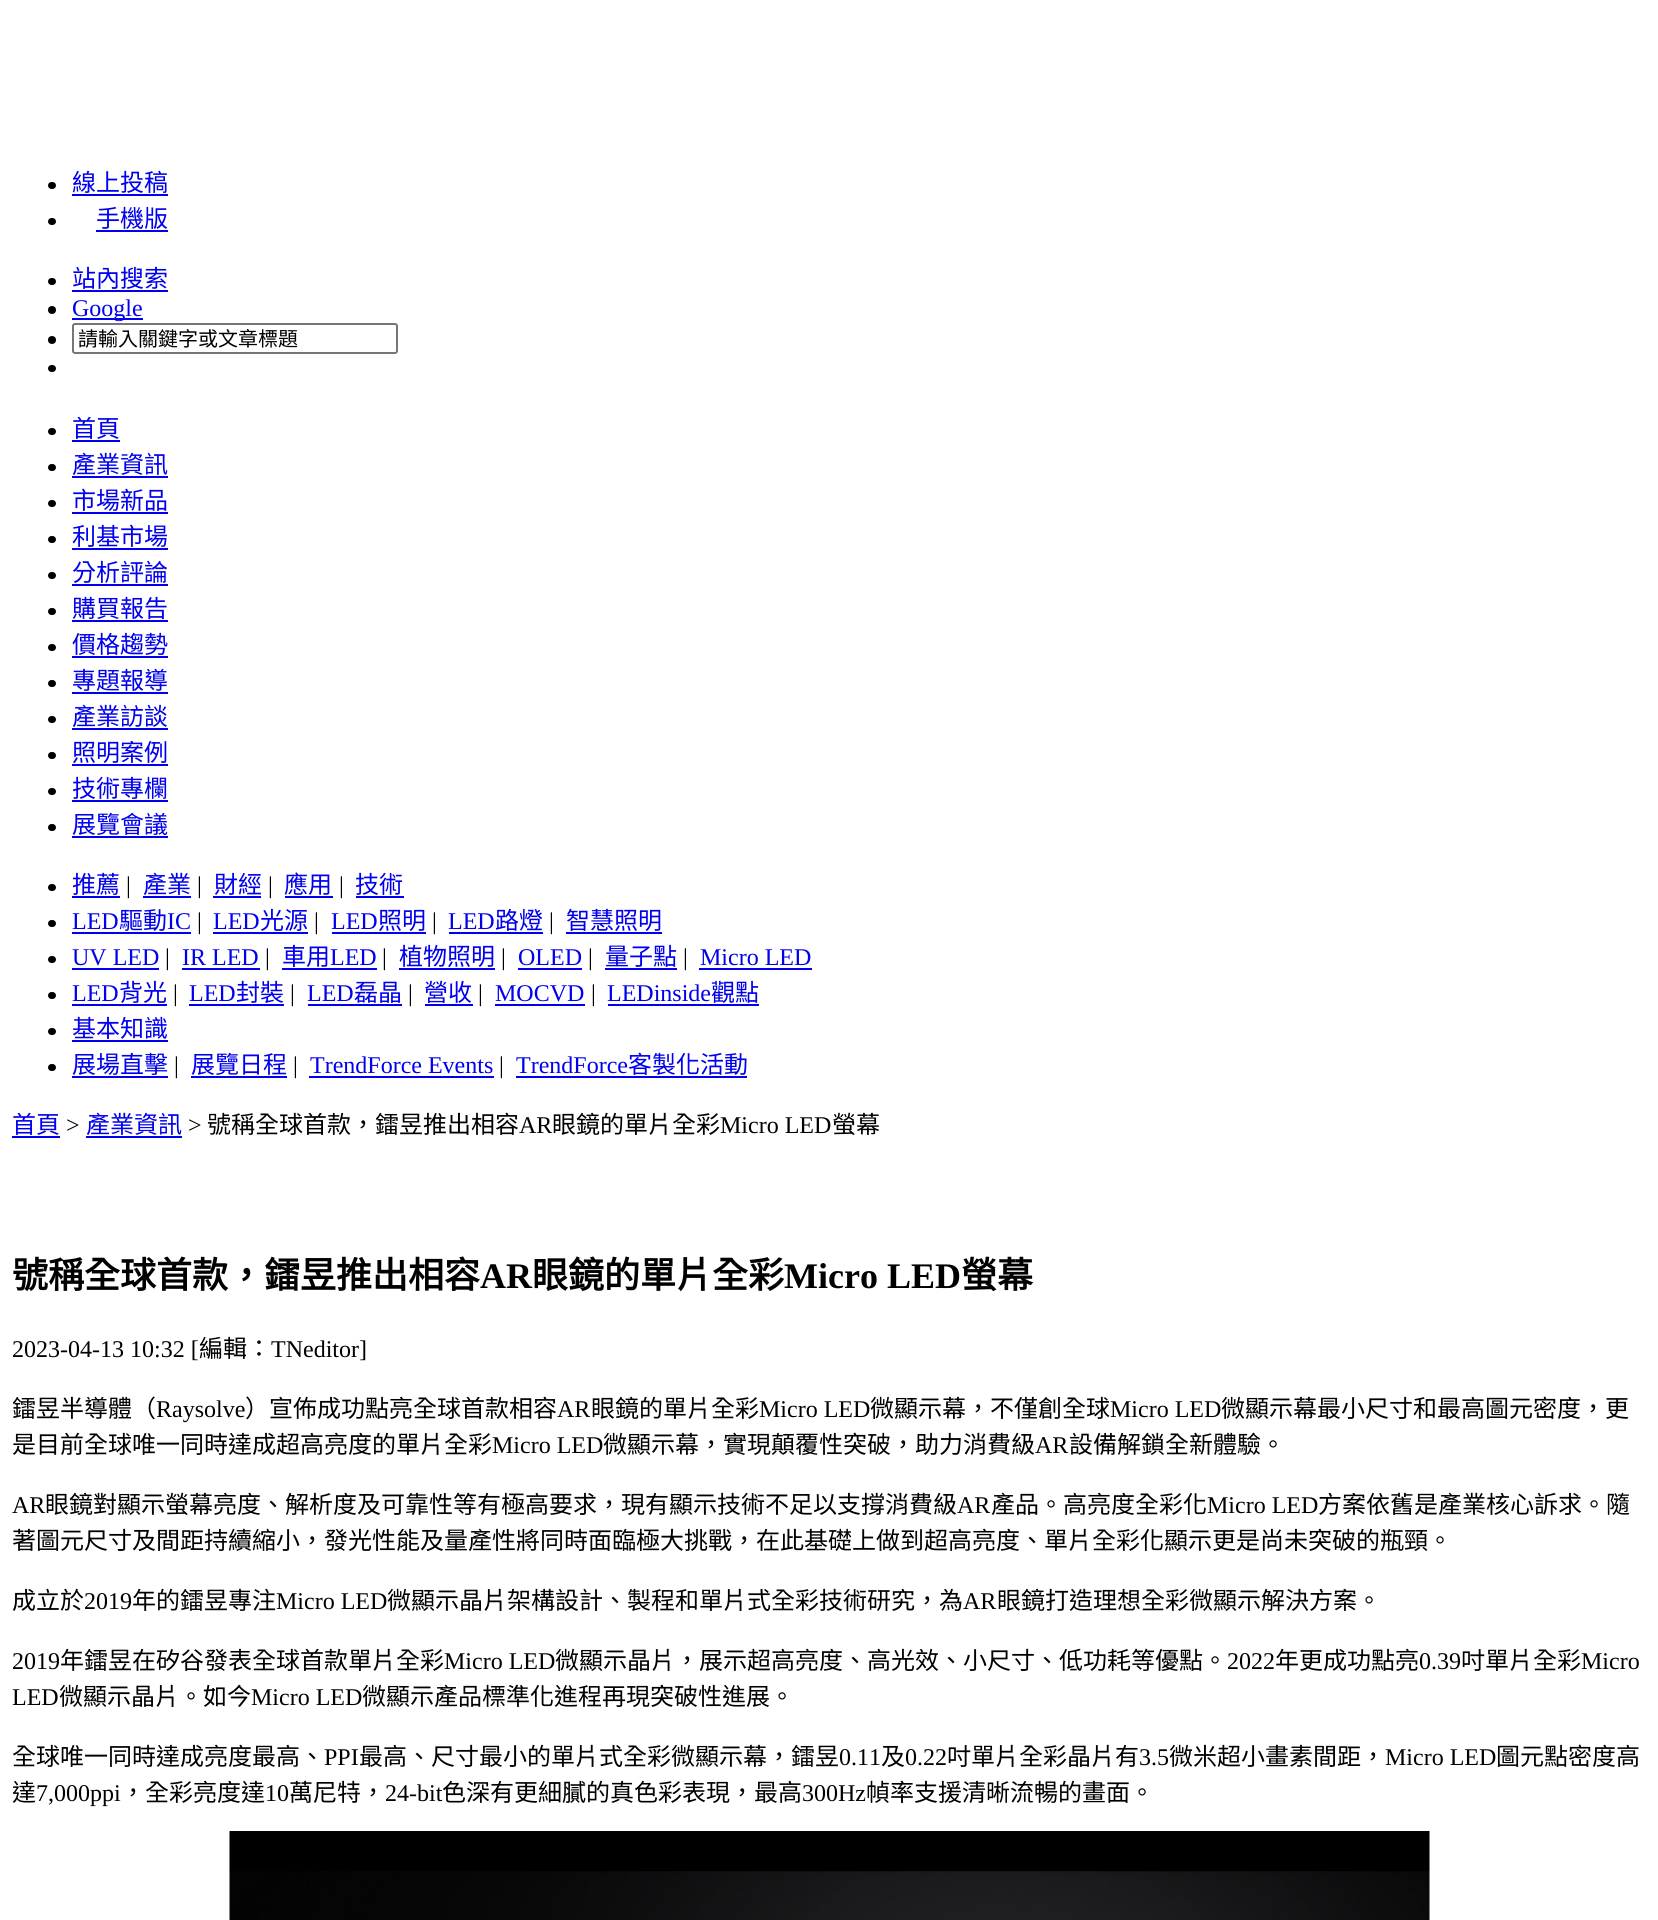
import math
import cairo

surface = cairo.ImageSurface(cairo.FORMAT_RGB24, 1658, 1920)
ctx = cairo.Context(surface)
options = cairo.FontOptions()
options.set_hint_metrics(cairo.HINT_METRICS_OFF)
options.set_hint_style(cairo.HINT_STYLE_NONE)
ctx.set_font_options(options)
ctx.set_miter_limit(4)


def round_rect(x, y, w, h, r):
    ctx.new_sub_path()
    for i, (u, v) in enumerate([(x + w - r, y + h - r), (x + r, y + h - r), (x + r, y + r), (x + w - r, y + r)]):
        ctx.arc(u, v, r, i * math.pi / 2, (i + 1) * math.pi / 2)
    ctx.close_path()


def picture(path, x, y, w, h):
    ctx.save()
    ctx.set_source_surface(cairo.ImageSurface.create_from_png(path), x, y)
    ctx.rectangle(x, y, w, h)
    ctx.fill()
    ctx.restore()


ctx.set_source_rgb(1, 1, 1)
ctx.paint()
ctx.set_source_rgb(0, 0, 0)
round_rect(48, 182, 8, 7, 3.5)
ctx.fill()
ctx.select_font_face("Noto Sans CJK TC")
ctx.set_font_size(24)
ctx.set_source_rgb(0, 0, 0.933)
ctx.move_to(72, 191)
ctx.show_text("線上投稿")
ctx.rectangle(72, 194, 96, 2)
ctx.fill()
ctx.set_source_rgb(0, 0, 0)
round_rect(48, 218, 8, 7, 3.5)
ctx.fill()
ctx.set_source_rgb(0, 0, 0.933)
ctx.move_to(96, 227)
ctx.show_text("手機版")
ctx.rectangle(96, 230, 72, 2)
ctx.fill()
ctx.set_source_rgb(0, 0, 0)
round_rect(48, 278, 8, 7, 3.5)
ctx.fill()
ctx.set_source_rgb(0, 0, 0.933)
ctx.move_to(72, 287)
ctx.show_text("站內搜索")
ctx.rectangle(72, 290, 96, 2)
ctx.fill()
ctx.set_source_rgb(0, 0, 0)
ctx.arc(52, 310, 4, 0, 2 * math.pi)
ctx.fill()
ctx.set_source_rgb(0, 0, 0.933)
ctx.rectangle(72, 318, 71, 2)
ctx.fill()
ctx.select_font_face("Liberation Serif")
ctx.move_to(72, 316)
ctx.show_text("Google")
ctx.set_source_rgb(0, 0, 0)
ctx.new_path()
ctx.arc(52, 340, 4, 0, 2 * math.pi)
ctx.fill()
round_rect(73, 324, 324, 29, 2)
ctx.set_source_rgb(0.463, 0.463, 0.463)
ctx.stroke()
ctx.select_font_face("Noto Sans CJK TC")
ctx.set_font_size(20)
ctx.set_source_rgb(0, 0, 0)
ctx.move_to(78, 346)
ctx.show_text("請輸入關鍵字或文章標題")
round_rect(48, 365, 8, 7, 3.5)
ctx.fill()
round_rect(48, 428, 8, 7, 3.5)
ctx.fill()
ctx.set_font_size(24)
ctx.set_source_rgb(0, 0, 0.933)
ctx.move_to(72, 437)
ctx.show_text("首頁")
ctx.rectangle(72, 440, 48, 2)
ctx.fill()
ctx.set_source_rgb(0, 0, 0)
round_rect(48, 464, 8, 7, 3.5)
ctx.fill()
ctx.set_source_rgb(0, 0, 0.933)
ctx.move_to(72, 473)
ctx.show_text("產業資訊")
ctx.rectangle(72, 476, 96, 2)
ctx.fill()
ctx.set_source_rgb(0, 0, 0)
round_rect(48, 500, 8, 7, 3.5)
ctx.fill()
ctx.set_source_rgb(0, 0, 0.933)
ctx.move_to(72, 509)
ctx.show_text("市場新品")
ctx.rectangle(72, 512, 96, 2)
ctx.fill()
ctx.set_source_rgb(0, 0, 0)
round_rect(48, 536, 8, 7, 3.5)
ctx.fill()
ctx.set_source_rgb(0, 0, 0.933)
ctx.move_to(72, 545)
ctx.show_text("利基市場")
ctx.rectangle(72, 548, 96, 2)
ctx.fill()
ctx.set_source_rgb(0, 0, 0)
round_rect(48, 572, 8, 7, 3.5)
ctx.fill()
ctx.set_source_rgb(0, 0, 0.933)
ctx.move_to(72, 581)
ctx.show_text("分析評論")
ctx.rectangle(72, 584, 96, 2)
ctx.fill()
ctx.set_source_rgb(0, 0, 0)
round_rect(48, 608, 8, 7, 3.5)
ctx.fill()
ctx.set_source_rgb(0, 0, 0.933)
ctx.move_to(72, 617)
ctx.show_text("購買報告")
ctx.rectangle(72, 620, 96, 2)
ctx.fill()
ctx.set_source_rgb(0, 0, 0)
round_rect(48, 644, 8, 7, 3.5)
ctx.fill()
ctx.set_source_rgb(0, 0, 0.933)
ctx.move_to(72, 653)
ctx.show_text("價格趨勢")
ctx.rectangle(72, 656, 96, 2)
ctx.fill()
ctx.set_source_rgb(0, 0, 0)
round_rect(48, 680, 8, 7, 3.5)
ctx.fill()
ctx.set_source_rgb(0, 0, 0.933)
ctx.move_to(72, 689)
ctx.show_text("專題報導")
ctx.rectangle(72, 692, 96, 2)
ctx.fill()
ctx.set_source_rgb(0, 0, 0)
round_rect(48, 716, 8, 7, 3.5)
ctx.fill()
ctx.set_source_rgb(0, 0, 0.933)
ctx.move_to(72, 725)
ctx.show_text("產業訪談")
ctx.rectangle(72, 728, 96, 2)
ctx.fill()
ctx.set_source_rgb(0, 0, 0)
round_rect(48, 752, 8, 7, 3.5)
ctx.fill()
ctx.set_source_rgb(0, 0, 0.933)
ctx.move_to(72, 761)
ctx.show_text("照明案例")
ctx.rectangle(72, 764, 96, 2)
ctx.fill()
ctx.set_source_rgb(0, 0, 0)
round_rect(48, 788, 8, 7, 3.5)
ctx.fill()
ctx.set_source_rgb(0, 0, 0.933)
ctx.move_to(72, 797)
ctx.show_text("技術專欄")
ctx.rectangle(72, 800, 96, 2)
ctx.fill()
ctx.set_source_rgb(0, 0, 0)
round_rect(48, 824, 8, 7, 3.5)
ctx.fill()
ctx.set_source_rgb(0, 0, 0.933)
ctx.move_to(72, 833)
ctx.show_text("展覽會議")
ctx.rectangle(72, 836, 96, 2)
ctx.fill()
ctx.set_source_rgb(0, 0, 0)
round_rect(48, 884, 8, 7, 3.5)
ctx.fill()
ctx.set_source_rgb(0, 0, 0.933)
ctx.move_to(72, 893)
ctx.show_text("推薦")
ctx.rectangle(72, 896, 48, 2)
ctx.fill()
ctx.select_font_face("Liberation Serif")
ctx.set_source_rgb(0, 0, 0)
ctx.move_to(126, 893)
ctx.show_text("|")
ctx.select_font_face("Noto Sans CJK TC")
ctx.set_source_rgb(0, 0, 0.933)
ctx.move_to(143, 893)
ctx.show_text("產業")
ctx.rectangle(143, 896, 48, 2)
ctx.fill()
ctx.select_font_face("Liberation Serif")
ctx.set_source_rgb(0, 0, 0)
ctx.move_to(197, 893)
ctx.show_text("|")
ctx.select_font_face("Noto Sans CJK TC")
ctx.set_source_rgb(0, 0, 0.933)
ctx.move_to(214, 893)
ctx.show_text("財經")
ctx.rectangle(213, 896, 48, 2)
ctx.fill()
ctx.select_font_face("Liberation Serif")
ctx.set_source_rgb(0, 0, 0)
ctx.move_to(268, 893)
ctx.show_text("|")
ctx.select_font_face("Noto Sans CJK TC")
ctx.set_source_rgb(0, 0, 0.933)
ctx.move_to(284, 893)
ctx.show_text("應用")
ctx.rectangle(285, 896, 48, 2)
ctx.fill()
ctx.select_font_face("Liberation Serif")
ctx.set_source_rgb(0, 0, 0)
ctx.move_to(339, 893)
ctx.show_text("|")
ctx.select_font_face("Noto Sans CJK TC")
ctx.set_source_rgb(0, 0, 0.933)
ctx.move_to(355, 893)
ctx.show_text("技術")
ctx.rectangle(356, 896, 48, 2)
ctx.fill()
ctx.set_source_rgb(0, 0, 0)
round_rect(48, 920, 8, 7, 3.5)
ctx.fill()
ctx.select_font_face("Liberation Serif")
ctx.set_source_rgb(0, 0, 0.933)
ctx.move_to(72, 929)
ctx.show_text("LED")
ctx.rectangle(72, 932, 119, 2)
ctx.fill()
ctx.select_font_face("Noto Sans CJK TC")
ctx.move_to(119, 929)
ctx.show_text("驅動")
ctx.select_font_face("Liberation Serif")
ctx.move_to(167, 929)
ctx.show_text("IC")
ctx.set_source_rgb(0, 0, 0)
ctx.move_to(197, 929)
ctx.show_text("|")
ctx.set_source_rgb(0, 0, 0.933)
ctx.move_to(213, 929)
ctx.show_text("LED")
ctx.rectangle(213, 932, 95, 2)
ctx.fill()
ctx.select_font_face("Noto Sans CJK TC")
ctx.move_to(260, 929)
ctx.show_text("光源")
ctx.select_font_face("Liberation Serif")
ctx.set_source_rgb(0, 0, 0)
ctx.move_to(314, 929)
ctx.show_text("|")
ctx.set_source_rgb(0, 0, 0.933)
ctx.move_to(331, 929)
ctx.show_text("LED")
ctx.rectangle(332, 932, 94, 2)
ctx.fill()
ctx.select_font_face("Noto Sans CJK TC")
ctx.move_to(378, 929)
ctx.show_text("照明")
ctx.select_font_face("Liberation Serif")
ctx.set_source_rgb(0, 0, 0)
ctx.move_to(432, 929)
ctx.show_text("|")
ctx.set_source_rgb(0, 0, 0.933)
ctx.move_to(448, 929)
ctx.show_text("LED")
ctx.rectangle(449, 932, 94, 2)
ctx.fill()
ctx.select_font_face("Noto Sans CJK TC")
ctx.move_to(495, 929)
ctx.show_text("路燈")
ctx.select_font_face("Liberation Serif")
ctx.set_source_rgb(0, 0, 0)
ctx.move_to(549, 929)
ctx.show_text("|")
ctx.select_font_face("Noto Sans CJK TC")
ctx.set_source_rgb(0, 0, 0.933)
ctx.move_to(566, 929)
ctx.show_text("智慧照明")
ctx.rectangle(566, 932, 96, 2)
ctx.fill()
ctx.set_source_rgb(0, 0, 0)
round_rect(48, 956, 8, 7, 3.5)
ctx.fill()
ctx.select_font_face("Liberation Serif")
ctx.set_source_rgb(0, 0, 0.933)
ctx.move_to(72, 965)
ctx.show_text("UV LED")
ctx.rectangle(72, 968, 87, 2)
ctx.fill()
ctx.set_source_rgb(0, 0, 0)
ctx.move_to(165, 965)
ctx.show_text("|")
ctx.set_source_rgb(0, 0, 0.933)
ctx.move_to(182, 965)
ctx.show_text("IR LED")
ctx.rectangle(182, 968, 78, 2)
ctx.fill()
ctx.set_source_rgb(0, 0, 0)
ctx.move_to(265, 965)
ctx.show_text("|")
ctx.select_font_face("Noto Sans CJK TC")
ctx.set_source_rgb(0, 0, 0.933)
ctx.move_to(282, 965)
ctx.show_text("車用")
ctx.select_font_face("Liberation Serif")
ctx.move_to(330, 965)
ctx.show_text("LED")
ctx.rectangle(282, 968, 95, 2)
ctx.fill()
ctx.set_source_rgb(0, 0, 0)
ctx.move_to(382, 965)
ctx.show_text("|")
ctx.select_font_face("Noto Sans CJK TC")
ctx.set_source_rgb(0, 0, 0.933)
ctx.move_to(399, 965)
ctx.show_text("植物照明")
ctx.rectangle(399, 968, 96, 2)
ctx.fill()
ctx.select_font_face("Liberation Serif")
ctx.set_source_rgb(0, 0, 0)
ctx.move_to(501, 965)
ctx.show_text("|")
ctx.set_source_rgb(0, 0, 0.933)
ctx.move_to(518, 965)
ctx.show_text("OLED")
ctx.rectangle(518, 968, 64, 2)
ctx.fill()
ctx.set_source_rgb(0, 0, 0)
ctx.move_to(588, 965)
ctx.show_text("|")
ctx.select_font_face("Noto Sans CJK TC")
ctx.set_source_rgb(0, 0, 0.933)
ctx.move_to(605, 965)
ctx.show_text("量子點")
ctx.rectangle(605, 968, 72, 2)
ctx.fill()
ctx.select_font_face("Liberation Serif")
ctx.set_source_rgb(0, 0, 0)
ctx.move_to(683, 965)
ctx.show_text("|")
ctx.set_source_rgb(0, 0, 0.933)
ctx.move_to(700, 965)
ctx.show_text("Micro LED")
ctx.rectangle(699, 968, 113, 2)
ctx.fill()
ctx.set_source_rgb(0, 0, 0)
round_rect(48, 992, 8, 7, 3.5)
ctx.fill()
ctx.set_source_rgb(0, 0, 0.933)
ctx.move_to(72, 1001)
ctx.show_text("LED")
ctx.rectangle(72, 1004, 95, 2)
ctx.fill()
ctx.select_font_face("Noto Sans CJK TC")
ctx.move_to(119, 1001)
ctx.show_text("背光")
ctx.select_font_face("Liberation Serif")
ctx.set_source_rgb(0, 0, 0)
ctx.move_to(173, 1001)
ctx.show_text("|")
ctx.set_source_rgb(0, 0, 0.933)
ctx.move_to(189, 1001)
ctx.show_text("LED")
ctx.rectangle(189, 1004, 95, 2)
ctx.fill()
ctx.select_font_face("Noto Sans CJK TC")
ctx.move_to(236, 1001)
ctx.show_text("封裝")
ctx.select_font_face("Liberation Serif")
ctx.set_source_rgb(0, 0, 0)
ctx.move_to(290, 1001)
ctx.show_text("|")
ctx.set_source_rgb(0, 0, 0.933)
ctx.move_to(307, 1001)
ctx.show_text("LED")
ctx.rectangle(308, 1004, 94, 2)
ctx.fill()
ctx.select_font_face("Noto Sans CJK TC")
ctx.move_to(354, 1001)
ctx.show_text("磊晶")
ctx.select_font_face("Liberation Serif")
ctx.set_source_rgb(0, 0, 0)
ctx.move_to(408, 1001)
ctx.show_text("|")
ctx.select_font_face("Noto Sans CJK TC")
ctx.set_source_rgb(0, 0, 0.933)
ctx.move_to(424, 1001)
ctx.show_text("營收")
ctx.rectangle(425, 1004, 48, 2)
ctx.fill()
ctx.select_font_face("Liberation Serif")
ctx.set_source_rgb(0, 0, 0)
ctx.move_to(478, 1001)
ctx.show_text("|")
ctx.set_source_rgb(0, 0, 0.933)
ctx.move_to(495, 1001)
ctx.show_text("MOCVD")
ctx.rectangle(495, 1004, 90, 2)
ctx.fill()
ctx.set_source_rgb(0, 0, 0)
ctx.move_to(591, 1001)
ctx.show_text("|")
ctx.set_source_rgb(0, 0, 0.933)
ctx.move_to(607, 1001)
ctx.show_text("LEDinside")
ctx.rectangle(608, 1004, 151, 2)
ctx.fill()
ctx.select_font_face("Noto Sans CJK TC")
ctx.move_to(711, 1001)
ctx.show_text("觀點")
ctx.set_source_rgb(0, 0, 0)
round_rect(48, 1028, 8, 7, 3.5)
ctx.fill()
ctx.set_source_rgb(0, 0, 0.933)
ctx.move_to(72, 1037)
ctx.show_text("基本知識")
ctx.rectangle(72, 1040, 96, 2)
ctx.fill()
ctx.set_source_rgb(0, 0, 0)
round_rect(48, 1064, 8, 7, 3.5)
ctx.fill()
ctx.set_source_rgb(0, 0, 0.933)
ctx.move_to(72, 1073)
ctx.show_text("展場直擊")
ctx.rectangle(72, 1076, 96, 2)
ctx.fill()
ctx.select_font_face("Liberation Serif")
ctx.set_source_rgb(0, 0, 0)
ctx.move_to(174, 1073)
ctx.show_text("|")
ctx.select_font_face("Noto Sans CJK TC")
ctx.set_source_rgb(0, 0, 0.933)
ctx.move_to(191, 1073)
ctx.show_text("展覽日程")
ctx.rectangle(191, 1076, 96, 2)
ctx.fill()
ctx.select_font_face("Liberation Serif")
ctx.set_source_rgb(0, 0, 0)
ctx.move_to(293, 1073)
ctx.show_text("|")
ctx.set_source_rgb(0, 0, 0.933)
ctx.move_to(310, 1073)
ctx.show_text("TrendForce Events")
ctx.rectangle(309, 1076, 185, 2)
ctx.fill()
ctx.set_source_rgb(0, 0, 0)
ctx.move_to(499, 1073)
ctx.show_text("|")
ctx.set_source_rgb(0, 0, 0.933)
ctx.move_to(516, 1073)
ctx.show_text("TrendForce")
ctx.rectangle(516, 1076, 231, 2)
ctx.fill()
ctx.select_font_face("Noto Sans CJK TC")
ctx.move_to(628, 1073)
ctx.show_text("客製化活動")
ctx.move_to(12, 1133)
ctx.show_text("首頁")
ctx.rectangle(12, 1136, 48, 2)
ctx.fill()
ctx.select_font_face("Liberation Serif")
ctx.set_source_rgb(0, 0, 0)
ctx.move_to(66, 1133)
ctx.show_text(">")
ctx.select_font_face("Noto Sans CJK TC")
ctx.set_source_rgb(0, 0, 0.933)
ctx.move_to(86, 1133)
ctx.show_text("產業資訊")
ctx.rectangle(86, 1136, 96, 2)
ctx.fill()
ctx.select_font_face("Liberation Serif")
ctx.set_source_rgb(0, 0, 0)
ctx.move_to(188, 1133)
ctx.show_text(">")
ctx.select_font_face("Noto Sans CJK TC")
ctx.move_to(207, 1133)
ctx.show_text("號稱全球首款，鐳昱推出相容")
ctx.select_font_face("Liberation Serif")
ctx.move_to(519, 1133)
ctx.show_text("AR")
ctx.select_font_face("Noto Sans CJK TC")
ctx.move_to(552, 1133)
ctx.show_text("眼鏡的單片全彩")
ctx.select_font_face("Liberation Serif")
ctx.move_to(720, 1133)
ctx.show_text("Micro LED")
ctx.select_font_face("Noto Sans CJK TC")
ctx.move_to(832, 1133)
ctx.show_text("螢幕")
ctx.select_font_face("Noto Sans CJK TC", cairo.FONT_SLANT_NORMAL, cairo.FONT_WEIGHT_BOLD)
ctx.set_font_size(36)
ctx.move_to(12, 1288)
ctx.show_text("號稱全球首款，鐳昱推出相容")
ctx.select_font_face("Liberation Serif", cairo.FONT_SLANT_NORMAL, cairo.FONT_WEIGHT_BOLD)
ctx.move_to(480, 1288)
ctx.show_text("AR")
ctx.select_font_face("Noto Sans CJK TC", cairo.FONT_SLANT_NORMAL, cairo.FONT_WEIGHT_BOLD)
ctx.move_to(532, 1288)
ctx.show_text("眼鏡的單片全彩")
ctx.select_font_face("Liberation Serif", cairo.FONT_SLANT_NORMAL, cairo.FONT_WEIGHT_BOLD)
ctx.move_to(784, 1288)
ctx.show_text("Micro LED")
ctx.select_font_face("Noto Sans CJK TC", cairo.FONT_SLANT_NORMAL, cairo.FONT_WEIGHT_BOLD)
ctx.move_to(961, 1288)
ctx.show_text("螢幕")
ctx.select_font_face("Liberation Serif")
ctx.set_font_size(24)
ctx.move_to(12, 1357)
ctx.show_text("2023-04-13 10:32 [")
ctx.select_font_face("Noto Sans CJK TC")
ctx.move_to(199, 1357)
ctx.show_text("編輯：")
ctx.select_font_face("Liberation Serif")
ctx.move_to(271, 1357)
ctx.show_text("TNeditor]")
ctx.select_font_face("Noto Sans CJK TC")
ctx.move_to(12, 1417)
ctx.show_text("鐳昱半導體（")
ctx.select_font_face("Liberation Serif")
ctx.move_to(156, 1417)
ctx.show_text("Raysolve")
ctx.select_font_face("Noto Sans CJK TC")
ctx.move_to(245, 1417)
ctx.show_text("）宣佈成功點亮全球首款相容")
ctx.select_font_face("Liberation Serif")
ctx.move_to(557, 1417)
ctx.show_text("AR")
ctx.select_font_face("Noto Sans CJK TC")
ctx.move_to(591, 1417)
ctx.show_text("眼鏡的單片全彩")
ctx.select_font_face("Liberation Serif")
ctx.move_to(759, 1417)
ctx.show_text("Micro LED")
ctx.select_font_face("Noto Sans CJK TC")
ctx.move_to(870, 1417)
ctx.show_text("微顯示幕，不僅創全球")
ctx.select_font_face("Liberation Serif")
ctx.move_to(1110, 1417)
ctx.show_text("Micro LED")
ctx.select_font_face("Noto Sans CJK TC")
ctx.move_to(1221, 1417)
ctx.show_text("微顯示幕最小尺寸和最高圖元密度，更")
ctx.move_to(12, 1453)
ctx.show_text("是目前全球唯一同時達成超高亮度的單片全彩")
ctx.select_font_face("Liberation Serif")
ctx.move_to(492, 1453)
ctx.show_text("Micro LED")
ctx.select_font_face("Noto Sans CJK TC")
ctx.move_to(603, 1453)
ctx.show_text("微顯示幕，實現顛覆性突破，助力消費級")
ctx.select_font_face("Liberation Serif")
ctx.move_to(1035, 1453)
ctx.show_text("AR")
ctx.select_font_face("Noto Sans CJK TC")
ctx.move_to(1069, 1453)
ctx.show_text("設備解鎖全新體驗。")
ctx.select_font_face("Liberation Serif")
ctx.move_to(12, 1513)
ctx.show_text("AR")
ctx.select_font_face("Noto Sans CJK TC")
ctx.move_to(45, 1513)
ctx.show_text("眼鏡對顯示螢幕亮度、解析度及可靠性等有極高要求，現有顯示技術不足以支撐消費級")
ctx.select_font_face("Liberation Serif")
ctx.move_to(957, 1513)
ctx.show_text("AR")
ctx.select_font_face("Noto Sans CJK TC")
ctx.move_to(991, 1513)
ctx.show_text("產品。高亮度全彩化")
ctx.select_font_face("Liberation Serif")
ctx.move_to(1207, 1513)
ctx.show_text("Micro LED")
ctx.select_font_face("Noto Sans CJK TC")
ctx.move_to(1318, 1513)
ctx.show_text("方案依舊是產業核心訴求。隨")
ctx.move_to(12, 1549)
ctx.show_text("著圖元尺寸及間距持續縮小，發光性能及量產性將同時面臨極大挑戰，在此基礎上做到超高亮度、單片全彩化顯示更是尚未突破的瓶頸。")
ctx.move_to(12, 1609)
ctx.show_text("成立於")
ctx.select_font_face("Liberation Serif")
ctx.move_to(84, 1609)
ctx.show_text("2019")
ctx.select_font_face("Noto Sans CJK TC")
ctx.move_to(132, 1609)
ctx.show_text("年的鐳昱專注")
ctx.select_font_face("Liberation Serif")
ctx.move_to(276, 1609)
ctx.show_text("Micro LED")
ctx.select_font_face("Noto Sans CJK TC")
ctx.move_to(387, 1609)
ctx.show_text("微顯示晶片架構設計、製程和單片式全彩技術研究，為")
ctx.select_font_face("Liberation Serif")
ctx.move_to(963, 1609)
ctx.show_text("AR")
ctx.select_font_face("Noto Sans CJK TC")
ctx.move_to(997, 1609)
ctx.show_text("眼鏡打造理想全彩微顯示解決方案。")
ctx.select_font_face("Liberation Serif")
ctx.move_to(12, 1669)
ctx.show_text("2019")
ctx.select_font_face("Noto Sans CJK TC")
ctx.move_to(60, 1669)
ctx.show_text("年鐳昱在矽谷發表全球首款單片全彩")
ctx.select_font_face("Liberation Serif")
ctx.move_to(444, 1669)
ctx.show_text("Micro LED")
ctx.select_font_face("Noto Sans CJK TC")
ctx.move_to(555, 1669)
ctx.show_text("微顯示晶片，展示超高亮度、高光效、小尺寸、低功耗等優點。")
ctx.select_font_face("Liberation Serif")
ctx.move_to(1227, 1669)
ctx.show_text("2022")
ctx.select_font_face("Noto Sans CJK TC")
ctx.move_to(1275, 1669)
ctx.show_text("年更成功點亮")
ctx.select_font_face("Liberation Serif")
ctx.move_to(1419, 1669)
ctx.show_text("0.39")
ctx.select_font_face("Noto Sans CJK TC")
ctx.move_to(1461, 1669)
ctx.show_text("吋單片全彩")
ctx.select_font_face("Liberation Serif")
ctx.move_to(1581, 1669)
ctx.show_text("Micro")
ctx.move_to(12, 1705)
ctx.show_text("LED")
ctx.select_font_face("Noto Sans CJK TC")
ctx.move_to(59, 1705)
ctx.show_text("微顯示晶片。如今")
ctx.select_font_face("Liberation Serif")
ctx.move_to(251, 1705)
ctx.show_text("Micro LED")
ctx.select_font_face("Noto Sans CJK TC")
ctx.move_to(362, 1705)
ctx.show_text("微顯示產品標準化進程再現突破性進展。")
ctx.move_to(12, 1765)
ctx.show_text("全球唯一同時達成亮度最高、")
ctx.select_font_face("Liberation Serif")
ctx.move_to(324, 1765)
ctx.show_text("PPI")
ctx.select_font_face("Noto Sans CJK TC")
ctx.move_to(359, 1765)
ctx.show_text("最高、尺寸最小的單片式全彩微顯示幕，鐳昱")
ctx.select_font_face("Liberation Serif")
ctx.move_to(839, 1765)
ctx.show_text("0.11")
ctx.select_font_face("Noto Sans CJK TC")
ctx.move_to(881, 1765)
ctx.show_text("及")
ctx.select_font_face("Liberation Serif")
ctx.move_to(905, 1765)
ctx.show_text("0.22")
ctx.select_font_face("Noto Sans CJK TC")
ctx.move_to(947, 1765)
ctx.show_text("吋單片全彩晶片有")
ctx.select_font_face("Liberation Serif")
ctx.move_to(1139, 1765)
ctx.show_text("3.5")
ctx.select_font_face("Noto Sans CJK TC")
ctx.move_to(1169, 1765)
ctx.show_text("微米超小畫素間距，")
ctx.select_font_face("Liberation Serif")
ctx.move_to(1385, 1765)
ctx.show_text("Micro LED")
ctx.select_font_face("Noto Sans CJK TC")
ctx.move_to(1496, 1765)
ctx.show_text("圖元點密度高")
ctx.move_to(12, 1801)
ctx.show_text("達")
ctx.select_font_face("Liberation Serif")
ctx.move_to(36, 1801)
ctx.show_text("7,000ppi")
ctx.select_font_face("Noto Sans CJK TC")
ctx.move_to(121, 1801)
ctx.show_text("，全彩亮度達")
ctx.select_font_face("Liberation Serif")
ctx.move_to(265, 1801)
ctx.show_text("10")
ctx.select_font_face("Noto Sans CJK TC")
ctx.move_to(289, 1801)
ctx.show_text("萬尼特，")
ctx.select_font_face("Liberation Serif")
ctx.move_to(385, 1801)
ctx.show_text("24-bit")
ctx.select_font_face("Noto Sans CJK TC")
ctx.move_to(442, 1801)
ctx.show_text("色深有更細膩的真色彩表現，最高")
ctx.select_font_face("Liberation Serif")
ctx.move_to(802, 1801)
ctx.show_text("300Hz")
ctx.select_font_face("Noto Sans CJK TC")
ctx.move_to(866, 1801)
ctx.show_text("幀率支援清晰流暢的畫面。")
picture("img1.png", 229, 1831, 1201, 89)
surface.write_to_png("page.png")
